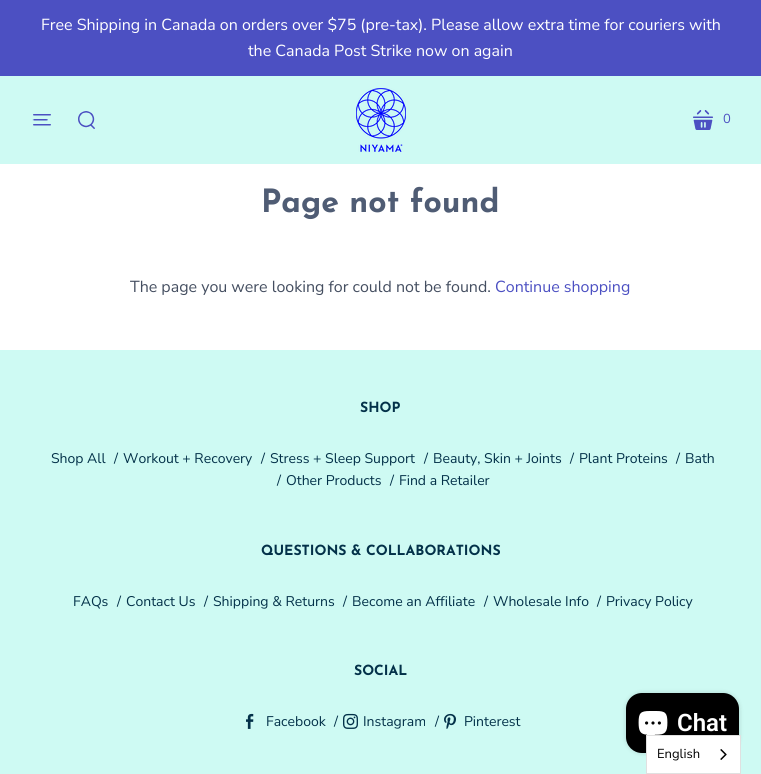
import math
import cairo

surface = cairo.ImageSurface(cairo.FORMAT_RGB24, 761, 774)
ctx = cairo.Context(surface)
options = cairo.FontOptions()
options.set_hint_metrics(cairo.HINT_METRICS_OFF)
options.set_hint_style(cairo.HINT_STYLE_NONE)
ctx.set_font_options(options)
ctx.set_miter_limit(4)


def round_rect(x, y, w, h, r):
    ctx.new_sub_path()
    for i, (u, v) in enumerate([(x + w - r, y + h - r), (x + r, y + h - r), (x + r, y + r), (x + w - r, y + r)]):
        ctx.arc(u, v, r, i * math.pi / 2, (i + 1) * math.pi / 2)
    ctx.close_path()


def shadow(x, y, w, h, r, blur, alpha):
    ctx.push_group_with_content(cairo.CONTENT_ALPHA)
    ctx.set_operator(cairo.OPERATOR_SOURCE)
    for i in range(15, -16, -2):
        e = blur * i / 6
        if min(w, h) + 2 * e > 0:
            ctx.set_source_rgba(0, 0, 0, alpha * math.erfc((i - 1) / 8.5) / 2)
            round_rect(x - e, y - e, w + 2 * e, h + 2 * e, max(0, min(r + e + blur * .6, min(w, h) / 2 + e)))
            ctx.fill()
    ctx.mask(ctx.pop_group())


def picture(path, x, y, w, h):
    ctx.save()
    ctx.set_source_surface(cairo.ImageSurface.create_from_png(path), x, y)
    ctx.rectangle(x, y, w, h)
    ctx.fill()
    ctx.restore()


ctx.set_source_rgb(1, 1, 1)
ctx.paint()
ctx.set_source_rgb(0.298, 0.314, 0.761)
ctx.rectangle(0, 0, 761, 76)
ctx.fill()
ctx.select_font_face("Nunito Sans ExtraLight")
ctx.set_font_size(16)
ctx.set_source_rgb(1, 1, 1)
ctx.move_to(41, 30)
ctx.show_text("Free Shipping in Canada on orders over $75 (pre-tax). Please allow extra time for couriers with")
ctx.move_to(248, 56)
ctx.show_text("the Canada Post Strike now on again")
ctx.set_source_rgb(0.808, 0.98, 0.953)
ctx.rectangle(0, 76, 761, 88)
ctx.fill()
picture("img1.png", 33, 114, 18, 12)
picture("img2.png", 32, 119, 16, 2)
picture("img3.png", 78, 111, 17, 18)
picture("img4.png", 356, 88, 50, 64)
picture("img5.png", 693, 110, 20, 20)
ctx.set_font_size(13)
ctx.set_source_rgb(0.298, 0.314, 0.761)
ctx.move_to(723, 123)
ctx.show_text("0")
ctx.select_font_face("Josefin Sans", cairo.FONT_SLANT_NORMAL, cairo.FONT_WEIGHT_BOLD)
ctx.set_font_size(32)
ctx.set_source_rgb(0.31, 0.361, 0.455)
ctx.move_to(261, 212)
ctx.show_text("Page not found")
ctx.select_font_face("Nunito Sans ExtraLight")
ctx.set_font_size(16)
ctx.set_source_rgb(0.267, 0.306, 0.376)
ctx.move_to(130, 292)
ctx.show_text("The page you were looking for could not be found.")
ctx.set_source_rgb(0.298, 0.314, 0.761)
ctx.move_to(495, 292)
ctx.show_text("Continue shopping")
ctx.set_source_rgb(0.808, 0.98, 0.953)
ctx.rectangle(0, 350, 761, 424)
ctx.fill()
ctx.select_font_face("Josefin Sans", cairo.FONT_SLANT_NORMAL, cairo.FONT_WEIGHT_BOLD)
ctx.set_font_size(14)
ctx.set_source_rgb(0.012, 0.192, 0.286)
ctx.move_to(360, 412)
ctx.show_text("SHOP")
ctx.select_font_face("Nunito Sans ExtraLight")
ctx.move_to(51, 463)
ctx.show_text("Shop All")
ctx.move_to(114, 463)
ctx.show_text("/")
ctx.move_to(123, 463)
ctx.show_text("Workout + Recovery")
ctx.move_to(261, 463)
ctx.show_text("/")
ctx.move_to(270, 463)
ctx.show_text("Stress + Sleep Support")
ctx.move_to(424, 463)
ctx.show_text("/")
ctx.move_to(433, 463)
ctx.show_text("Beauty, Skin + Joints")
ctx.move_to(570, 463)
ctx.show_text("/")
ctx.move_to(579, 463)
ctx.show_text("Plant Proteins")
ctx.move_to(676, 463)
ctx.show_text("/")
ctx.move_to(685, 463)
ctx.show_text("Bath")
ctx.move_to(277, 485)
ctx.show_text("/")
ctx.move_to(286, 485)
ctx.show_text("Other Products")
ctx.move_to(390, 485)
ctx.show_text("/")
ctx.move_to(399, 485)
ctx.show_text("Find a Retailer")
ctx.select_font_face("Josefin Sans", cairo.FONT_SLANT_NORMAL, cairo.FONT_WEIGHT_BOLD)
ctx.move_to(261, 555)
ctx.show_text("QUESTIONS & COLLABORATIONS")
ctx.select_font_face("Nunito Sans ExtraLight")
ctx.move_to(73, 606)
ctx.show_text("FAQs")
ctx.move_to(117, 606)
ctx.show_text("/")
ctx.move_to(126, 606)
ctx.show_text("Contact Us")
ctx.move_to(204, 606)
ctx.show_text("/")
ctx.move_to(213, 606)
ctx.show_text("Shipping & Returns")
ctx.move_to(343, 606)
ctx.show_text("/")
ctx.move_to(352, 606)
ctx.show_text("Become an Affiliate")
ctx.move_to(484, 606)
ctx.show_text("/")
ctx.move_to(493, 606)
ctx.show_text("Wholesale Info")
ctx.move_to(597, 606)
ctx.show_text("/")
ctx.move_to(606, 606)
ctx.show_text("Privacy Policy")
ctx.select_font_face("Josefin Sans", cairo.FONT_SLANT_NORMAL, cairo.FONT_WEIGHT_BOLD)
ctx.move_to(354, 675)
ctx.show_text("SOCIAL")
picture("img6.png", 246, 713, 8, 16)
ctx.select_font_face("Nunito Sans ExtraLight")
ctx.move_to(266, 726)
ctx.show_text("Facebook")
ctx.move_to(334, 726)
ctx.show_text("/")
picture("img7.png", 343, 713, 15, 16)
ctx.move_to(363, 726)
ctx.show_text("Instagram")
ctx.move_to(435, 726)
ctx.show_text("/")
picture("img8.png", 444, 713, 12, 16)
ctx.move_to(464, 726)
ctx.show_text("Pinterest")
ctx.set_source_rgb(0, 0, 0)
shadow(626, 693, 113, 60, 16, 2.5, 0.15)
ctx.set_source_rgb(0, 0, 0)
round_rect(626, 693, 113, 60, 16)
ctx.fill()
picture("img9.png", 638, 711, 30, 24)
ctx.select_font_face("Roboto SemiBold")
ctx.set_font_size(24)
ctx.set_source_rgb(1, 1, 1)
ctx.move_to(677, 731)
ctx.show_text("Chat")
ctx.rectangle(646.5, 735.5, 94, 38)
ctx.fill_preserve()
ctx.set_source_rgb(0.878, 0.878, 0.878)
ctx.set_line_width(1)
ctx.stroke()
ctx.select_font_face("Nunito Sans ExtraLight")
ctx.set_font_size(13)
ctx.set_source_rgb(0, 0, 0)
ctx.move_to(657, 758)
ctx.show_text("English")
picture("img10.png", 720, 749, 7, 11)
surface.write_to_png("page.png")
